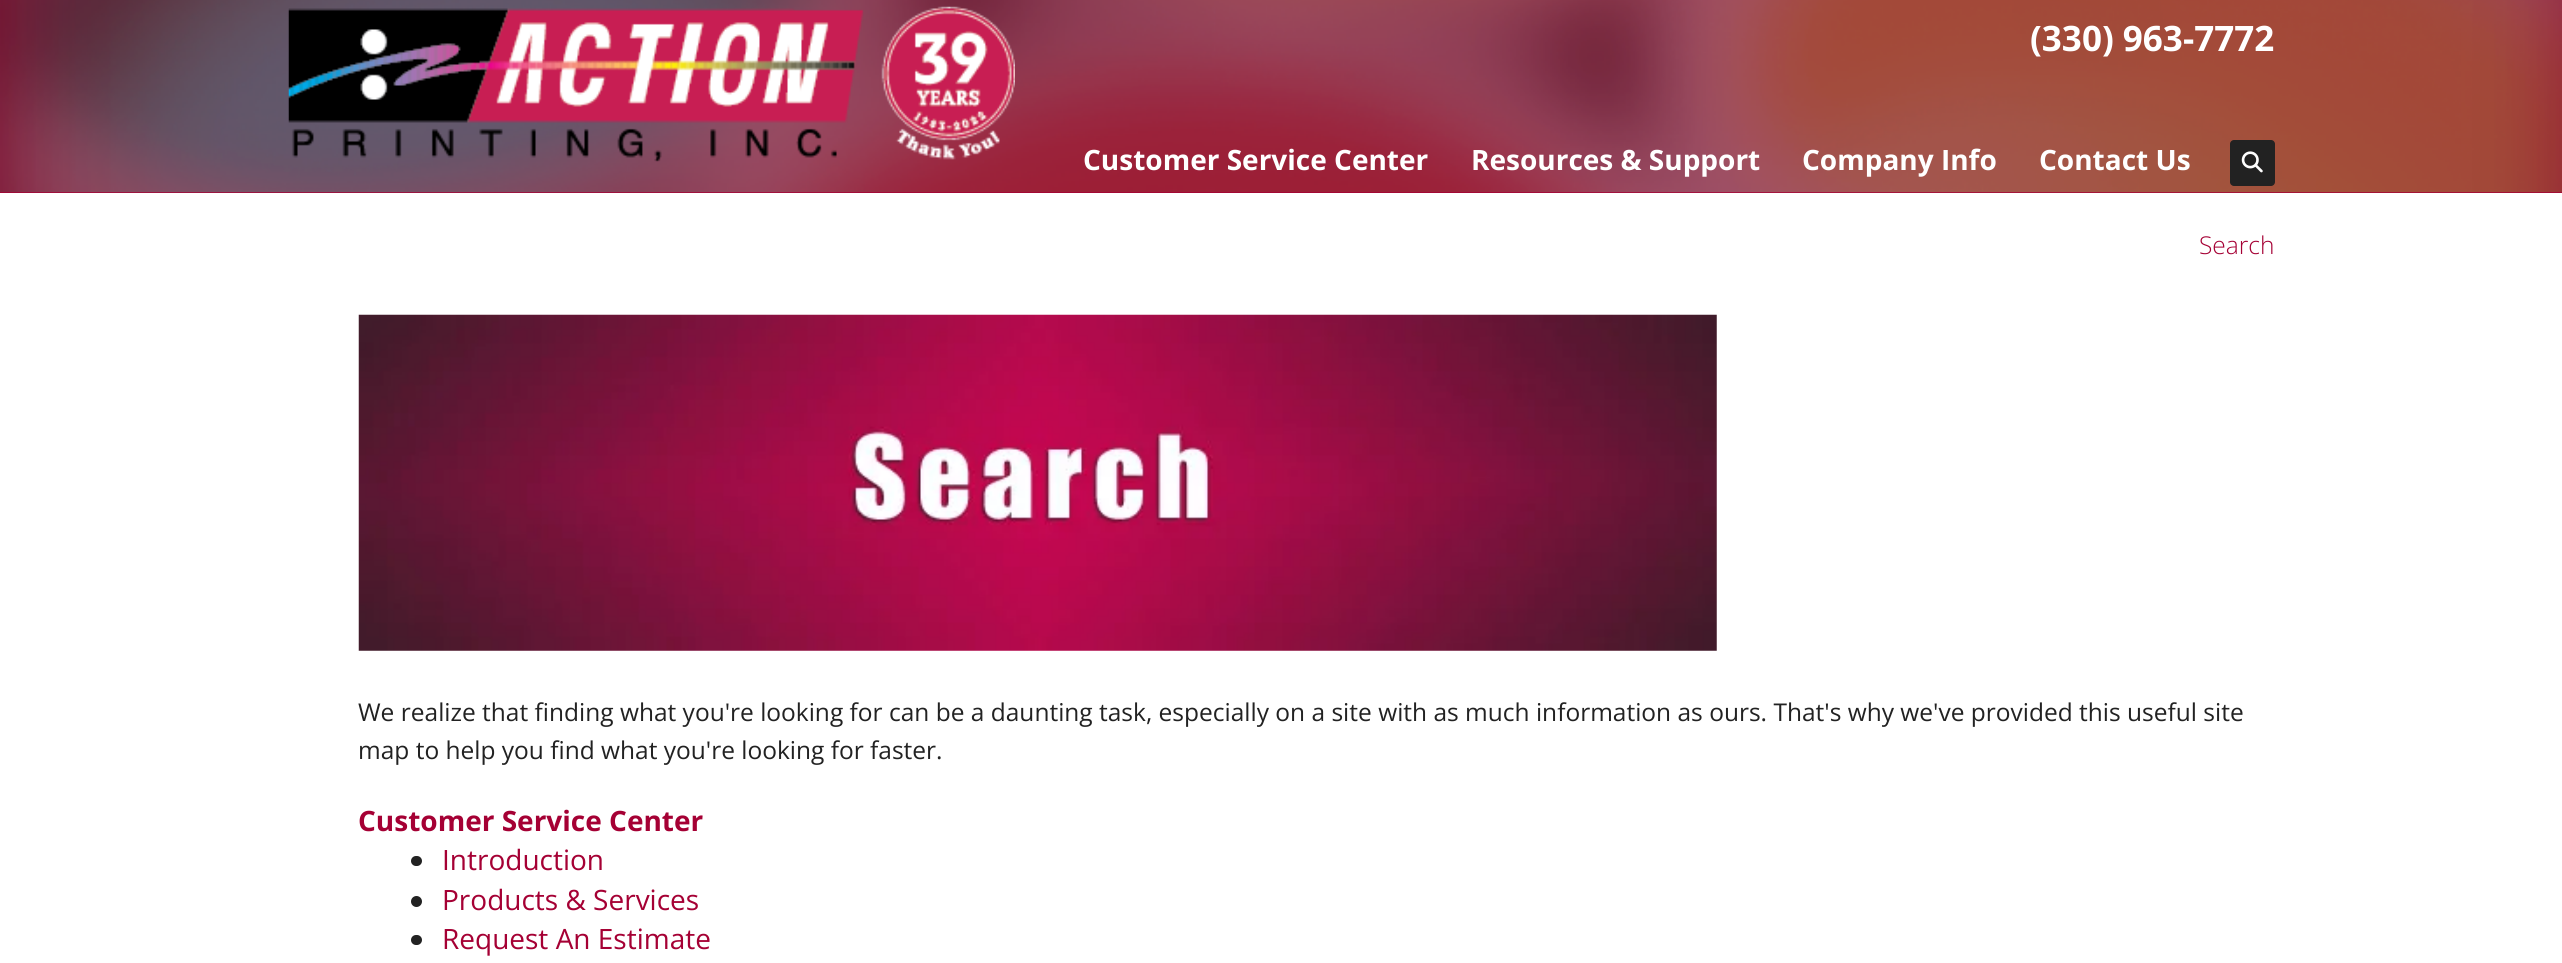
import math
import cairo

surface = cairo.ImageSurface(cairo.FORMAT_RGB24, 2562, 963)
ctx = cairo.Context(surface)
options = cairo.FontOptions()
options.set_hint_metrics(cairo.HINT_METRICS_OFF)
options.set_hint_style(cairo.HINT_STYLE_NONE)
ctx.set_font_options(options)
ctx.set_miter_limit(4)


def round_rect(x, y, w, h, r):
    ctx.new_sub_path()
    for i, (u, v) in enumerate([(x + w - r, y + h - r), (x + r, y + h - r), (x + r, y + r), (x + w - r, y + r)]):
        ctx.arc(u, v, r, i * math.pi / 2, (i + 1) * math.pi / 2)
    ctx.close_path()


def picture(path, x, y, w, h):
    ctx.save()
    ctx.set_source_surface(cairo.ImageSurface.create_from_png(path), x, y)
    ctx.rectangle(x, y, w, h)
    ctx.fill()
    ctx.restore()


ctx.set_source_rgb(0.647, 0, 0.204)
ctx.paint()
picture("img1.png", 0, 0, 2562, 193)
picture("img2.png", 288, 6, 727, 156)
ctx.select_font_face("Open Sans", cairo.FONT_SLANT_NORMAL, cairo.FONT_WEIGHT_BOLD)
ctx.set_font_size(35)
ctx.set_source_rgb(1, 1, 1)
ctx.move_to(2030, 51)
ctx.show_text("(330) 963-7772")
ctx.set_font_size(28)
ctx.move_to(1083, 170)
ctx.show_text("Customer Service Center")
ctx.move_to(1471, 170)
ctx.show_text("Resources & Support")
ctx.move_to(1802, 170)
ctx.show_text("Company Info")
ctx.move_to(2039, 170)
ctx.show_text("Contact Us")
ctx.set_source_rgb(0.133, 0.133, 0.133)
round_rect(2230, 140, 45, 46, 4)
ctx.fill()
picture("img3.png", 2241, 151, 22, 22)
ctx.set_source_rgb(1, 1, 1)
ctx.rectangle(0, 193, 2562, 770)
ctx.fill()
ctx.select_font_face("Open Sans Light")
ctx.set_font_size(24.5)
ctx.set_source_rgb(0.647, 0, 0.204)
ctx.move_to(2199, 254)
ctx.show_text("Search")
picture("img4.png", 358, 314, 1359, 337)
ctx.select_font_face("Open Sans")
ctx.set_source_rgb(0.133, 0.133, 0.133)
ctx.move_to(358, 721)
ctx.show_text("We realize that finding what you're looking for can be a daunting task, especially on a site with as much information as ours. That's why we've provided this useful site")
ctx.move_to(358, 759)
ctx.show_text("map to help you find what you're looking for faster.")
ctx.select_font_face("Open Sans", cairo.FONT_SLANT_NORMAL, cairo.FONT_WEIGHT_BOLD)
ctx.set_font_size(28)
ctx.set_source_rgb(0.647, 0, 0.204)
ctx.move_to(358, 831)
ctx.show_text("Customer Service Center")
ctx.set_source_rgb(0.133, 0.133, 0.133)
round_rect(411, 856, 11, 10, 5)
ctx.fill()
ctx.select_font_face("Open Sans")
ctx.set_source_rgb(0.647, 0, 0.204)
ctx.move_to(442, 870)
ctx.show_text("Introduction")
ctx.set_source_rgb(0.133, 0.133, 0.133)
ctx.new_path()
ctx.arc(416.5, 901.5, 5.5, 0, 2 * math.pi)
ctx.fill()
ctx.set_source_rgb(0.647, 0, 0.204)
ctx.move_to(442, 910)
ctx.show_text("Products & Services")
ctx.set_source_rgb(0.133, 0.133, 0.133)
round_rect(411, 935, 11, 10, 5)
ctx.fill()
ctx.set_source_rgb(0.647, 0, 0.204)
ctx.move_to(442, 949)
ctx.show_text("Request An Estimate")
surface.write_to_png("page.png")
